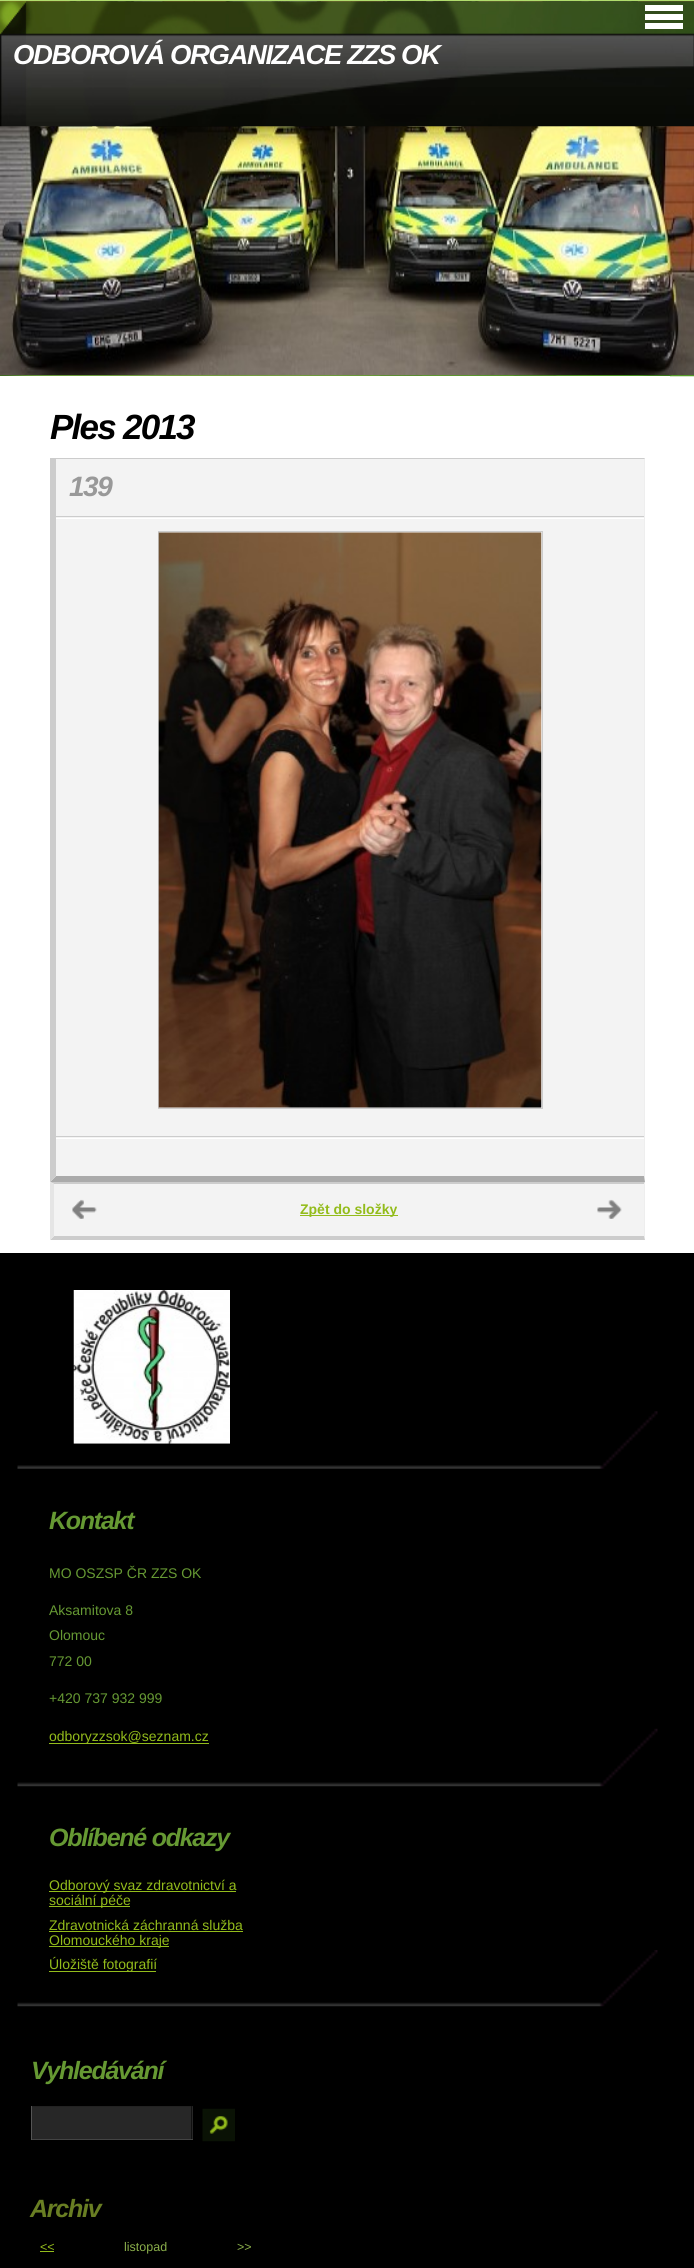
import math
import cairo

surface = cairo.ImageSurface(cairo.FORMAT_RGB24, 694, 2268)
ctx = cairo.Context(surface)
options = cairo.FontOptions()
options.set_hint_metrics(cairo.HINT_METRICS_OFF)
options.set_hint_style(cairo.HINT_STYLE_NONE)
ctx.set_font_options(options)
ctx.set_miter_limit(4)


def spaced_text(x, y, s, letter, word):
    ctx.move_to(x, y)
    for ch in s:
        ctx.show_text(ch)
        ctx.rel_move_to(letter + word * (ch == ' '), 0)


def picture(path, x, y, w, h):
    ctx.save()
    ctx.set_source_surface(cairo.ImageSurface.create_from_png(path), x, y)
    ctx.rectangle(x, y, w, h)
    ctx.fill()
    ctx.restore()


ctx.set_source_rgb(1, 1, 1)
ctx.paint()
picture("img1.png", 0, 1, 694, 375)
ctx.set_source_rgb(0.694, 0.867, 0.427)
ctx.rectangle(0, 0, 694, 1)
ctx.fill()
picture("img2.png", 670, 1, 24, 376)
picture("img3.png", 0, 1, 694, 374)
picture("img4.png", 0, 1, 694, 126)
ctx.set_source_rgb(1, 1, 1)
ctx.rectangle(645, 5, 38, 6)
ctx.fill()
ctx.rectangle(645, 14, 38, 6)
ctx.fill()
ctx.rectangle(645, 23, 38, 6)
ctx.fill()
ctx.select_font_face("Liberation Sans", cairo.FONT_SLANT_ITALIC, cairo.FONT_WEIGHT_BOLD)
ctx.set_font_size(27.5)
spaced_text(13, 64, "ODBOROVÁ ORGANIZACE ZZS OK", -1.4, 0)
ctx.set_font_size(35)
ctx.set_source_rgb(0, 0, 0)
spaced_text(50, 439, "Ples 2013", -1.75, 0)
ctx.set_source_rgb(0.953, 0.953, 0.953)
ctx.rectangle(56, 459, 588, 717)
ctx.fill()
ctx.set_source_rgb(0.8, 0.8, 0.8)
ctx.rectangle(50, 458, 595, 1)
ctx.fill()
ctx.set_source_rgb(0.933, 0.933, 0.933)
ctx.new_path()
ctx.move_to(645, 458)
ctx.line_to(645, 1182)
ctx.line_to(644, 1176)
ctx.line_to(644, 459)
ctx.close_path()
ctx.fill()
ctx.set_source_rgb(0.667, 0.667, 0.667)
ctx.new_path()
ctx.move_to(645, 1182)
ctx.line_to(50, 1182)
ctx.line_to(56, 1176)
ctx.line_to(644, 1176)
ctx.close_path()
ctx.fill()
ctx.set_source_rgb(0.8, 0.8, 0.8)
ctx.new_path()
ctx.move_to(50, 1182)
ctx.line_to(50, 458)
ctx.line_to(56, 459)
ctx.line_to(56, 1176)
ctx.close_path()
ctx.fill()
ctx.rectangle(56, 516, 588, 1)
ctx.fill()
ctx.set_font_size(28)
ctx.set_source_rgb(0.6, 0.6, 0.6)
spaced_text(69, 496, "139", -1.5, 0)
ctx.set_source_rgb(1, 1, 1)
ctx.rectangle(56, 518, 588, 1)
ctx.fill()
ctx.set_source_rgb(0.8, 0.8, 0.8)
ctx.rectangle(56, 1136, 588, 1)
ctx.fill()
ctx.rectangle(158.5, 531.5, 384, 577)
ctx.set_line_width(1)
ctx.stroke()
picture("img5.png", 158, 532, 384, 576)
ctx.set_source_rgb(1, 1, 1)
ctx.rectangle(56, 1138, 588, 1)
ctx.fill()
ctx.set_source_rgb(0.953, 0.953, 0.953)
ctx.rectangle(54, 1184, 590, 52)
ctx.fill()
ctx.set_source_rgb(0.8, 0.8, 0.8)
ctx.new_path()
ctx.move_to(50, 1182)
ctx.line_to(645, 1182)
ctx.line_to(644, 1184)
ctx.line_to(54, 1184)
ctx.close_path()
ctx.fill()
ctx.set_source_rgb(0.933, 0.933, 0.933)
ctx.new_path()
ctx.move_to(645, 1182)
ctx.line_to(645, 1240)
ctx.line_to(644, 1236)
ctx.line_to(644, 1184)
ctx.close_path()
ctx.fill()
ctx.set_source_rgb(0.8, 0.8, 0.8)
ctx.new_path()
ctx.move_to(645, 1240)
ctx.line_to(50, 1240)
ctx.line_to(54, 1236)
ctx.line_to(644, 1236)
ctx.close_path()
ctx.fill()
ctx.set_source_rgb(0.898, 0.898, 0.898)
ctx.new_path()
ctx.move_to(50, 1240)
ctx.line_to(50, 1182)
ctx.line_to(54, 1184)
ctx.line_to(54, 1236)
ctx.close_path()
ctx.fill()
picture("img6.png", 72, 1199, 25, 20)
ctx.set_source_rgb(0.576, 0.737, 0.106)
ctx.rectangle(300, 1215, 98, 1)
ctx.fill()
ctx.select_font_face("Liberation Sans", cairo.FONT_SLANT_NORMAL, cairo.FONT_WEIGHT_BOLD)
ctx.set_font_size(14)
ctx.move_to(300, 1214)
ctx.show_text("Zpět do složky")
picture("img7.png", 597, 1199, 25, 20)
ctx.set_source_rgb(0, 0, 0)
ctx.rectangle(0, 1253, 694, 1015)
ctx.fill()
picture("img8.png", 17, 1411, 641, 58)
picture("img9.png", 73, 1290, 157, 154)
picture("img10.png", 17, 1728, 641, 59)
ctx.select_font_face("Liberation Sans", cairo.FONT_SLANT_ITALIC, cairo.FONT_WEIGHT_BOLD)
ctx.set_font_size(25)
ctx.set_source_rgb(0.4, 0.6, 0.2)
spaced_text(49, 1529, "Kontakt", -1.25, 0)
ctx.select_font_face("Liberation Sans")
ctx.set_font_size(14)
ctx.move_to(49, 1578)
ctx.show_text("MO OSZSP ČR ZZS OK")
ctx.move_to(49, 1615)
ctx.show_text("Aksamitova 8")
ctx.move_to(49, 1640)
ctx.show_text("Olomouc")
ctx.move_to(49, 1666)
ctx.show_text("772 00")
ctx.move_to(49, 1703)
ctx.show_text("+420 737 932 999")
ctx.set_source_rgb(0.576, 0.737, 0.106)
ctx.rectangle(49, 1743, 160, 1)
ctx.fill()
ctx.move_to(49, 1741)
ctx.show_text("odboryzzsok@seznam.cz")
picture("img11.png", 17, 1950, 641, 57)
ctx.select_font_face("Liberation Sans", cairo.FONT_SLANT_ITALIC, cairo.FONT_WEIGHT_BOLD)
ctx.set_font_size(25)
ctx.set_source_rgb(0.4, 0.6, 0.2)
spaced_text(49, 1846, "Oblíbené odkazy", -1.25, 0)
ctx.set_source_rgb(0.576, 0.737, 0.106)
ctx.rectangle(49, 1891, 187, 1)
ctx.fill()
ctx.select_font_face("Liberation Sans")
ctx.set_font_size(14)
ctx.move_to(49, 1890)
ctx.show_text("Odborový svaz zdravotnictví a")
ctx.rectangle(49, 1906, 81, 1)
ctx.fill()
ctx.move_to(49, 1905)
ctx.show_text("sociální péče")
ctx.move_to(49, 1930)
ctx.show_text("Zdravotnická záchranná služba")
ctx.rectangle(49, 1931, 194, 1)
ctx.fill()
ctx.rectangle(49, 1946, 120, 1)
ctx.fill()
ctx.move_to(49, 1945)
ctx.show_text("Olomouckého kraje")
ctx.rectangle(49, 1971, 107, 1)
ctx.fill()
ctx.move_to(49, 1969)
ctx.show_text("Úložiště fotografií")
ctx.select_font_face("Liberation Sans", cairo.FONT_SLANT_ITALIC, cairo.FONT_WEIGHT_BOLD)
ctx.set_font_size(25)
ctx.set_source_rgb(0.4, 0.6, 0.2)
spaced_text(31, 2079, "Vyhledávání", -1.25, 0)
ctx.set_source_rgb(0.153, 0.153, 0.153)
ctx.rectangle(32, 2107, 161, 32)
ctx.fill()
ctx.set_source_rgb(0.133, 0.133, 0.133)
ctx.rectangle(31, 2106, 162, 1)
ctx.fill()
ctx.set_source_rgb(0.067, 0.067, 0.067)
ctx.rectangle(191, 2106, 1, 34)
ctx.fill()
ctx.set_source_rgb(0.267, 0.267, 0.267)
ctx.rectangle(31, 2139, 162, 1)
ctx.fill()
ctx.set_source_rgb(0.333, 0.333, 0.333)
ctx.rectangle(31, 2106, 1, 34)
ctx.fill()
picture("img12.png", 202, 2108, 33, 34)
ctx.set_source_rgb(0.412, 0.494, 0.137)
spaced_text(30, 2217, "Archiv", -1.25, 0)
ctx.select_font_face("Liberation Sans")
ctx.set_font_size(12.5)
ctx.set_source_rgb(0.576, 0.737, 0.106)
ctx.move_to(40, 2251)
ctx.show_text("<<")
ctx.rectangle(40, 2251, 14, 1)
ctx.fill()
ctx.set_source_rgb(0.545, 0.686, 0.294)
ctx.move_to(124, 2251)
ctx.show_text("listopad")
ctx.move_to(237, 2251)
ctx.show_text(">>")
surface.write_to_png("page.png")
